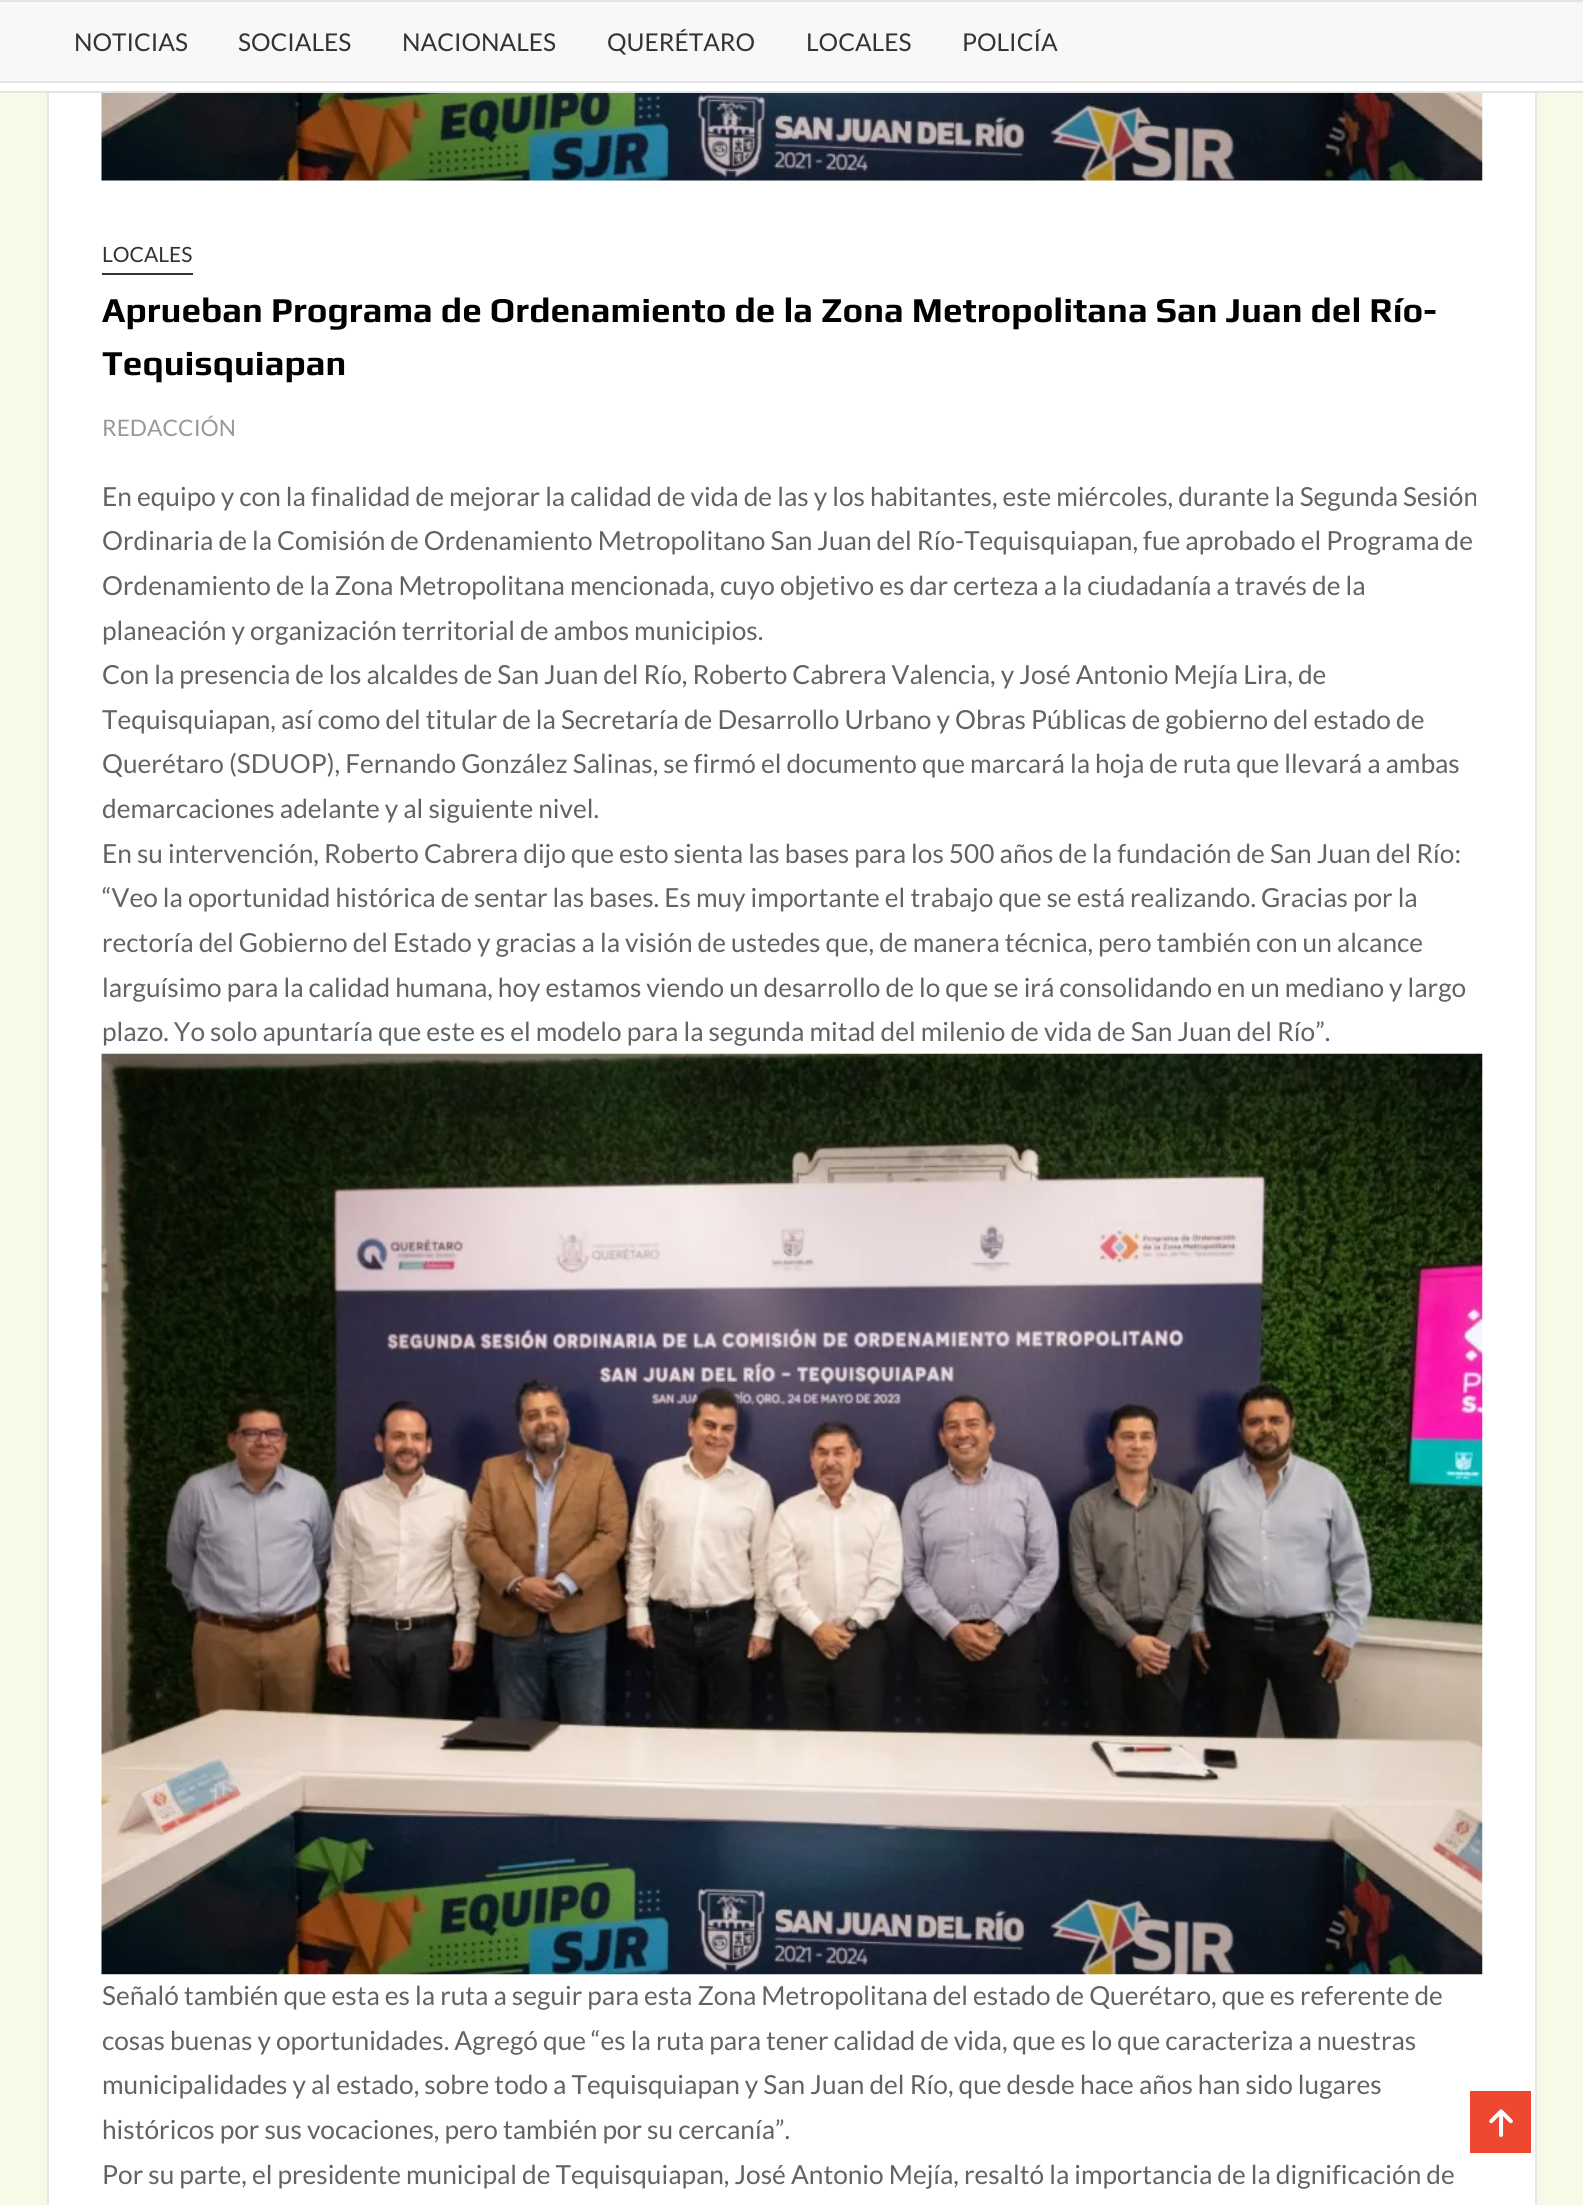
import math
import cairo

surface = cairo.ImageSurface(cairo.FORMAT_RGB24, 1583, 2205)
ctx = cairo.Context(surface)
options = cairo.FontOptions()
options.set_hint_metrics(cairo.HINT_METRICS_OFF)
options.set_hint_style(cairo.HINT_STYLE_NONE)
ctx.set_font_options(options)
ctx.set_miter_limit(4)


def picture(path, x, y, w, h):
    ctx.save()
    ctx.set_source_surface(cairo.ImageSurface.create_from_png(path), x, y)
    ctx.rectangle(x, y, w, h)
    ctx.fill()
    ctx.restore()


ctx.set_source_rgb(0.976, 0.976, 0.91)
ctx.paint()
ctx.set_source_rgb(1, 1, 1)
ctx.rectangle(49, 93, 1486, 2112)
ctx.fill()
ctx.rectangle(48, -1, 1488, 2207)
ctx.set_source_rgb(0.902, 0.902, 0.902)
ctx.stroke()
ctx.set_source_rgb(0.894, 0.894, 0.894)
ctx.new_path()
ctx.move_to(0, 91)
ctx.line_to(0, 93)
ctx.line_to(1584, 93)
ctx.line_to(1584, 2)
ctx.line_to(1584, 91)
ctx.close_path()
ctx.fill()
ctx.set_source_rgb(0.969, 0.969, 0.969)
ctx.rectangle(0, 2, 1583, 79)
ctx.fill()
ctx.set_source_rgb(1, 1, 1)
ctx.rectangle(0, 83, 1583, 8)
ctx.fill()
ctx.set_source_rgb(0.894, 0.894, 0.894)
ctx.rectangle(0, 0, 1583, 2)
ctx.fill()
ctx.rectangle(0, 81, 1583, 2)
ctx.fill()
ctx.select_font_face("Lato")
ctx.set_font_size(24.5)
ctx.set_source_rgb(0.2, 0.2, 0.2)
ctx.move_to(74, 51)
ctx.show_text("NOTICIAS")
ctx.move_to(238, 51)
ctx.show_text("SOCIALES")
ctx.move_to(402, 51)
ctx.show_text("NACIONALES")
ctx.move_to(607, 51)
ctx.show_text("QUERÉTARO")
ctx.move_to(806, 51)
ctx.show_text("LOCALES")
ctx.move_to(962, 51)
ctx.show_text("POLICÍA")
picture("img1.png", 101, 93, 1382, 88)
ctx.rectangle(102, 273, 91, 2)
ctx.fill()
ctx.set_font_size(21)
ctx.move_to(102, 262)
ctx.show_text("LOCALES")
ctx.select_font_face("Play", cairo.FONT_SLANT_NORMAL, cairo.FONT_WEIGHT_BOLD)
ctx.set_font_size(35)
ctx.set_source_rgb(0, 0, 0)
ctx.move_to(102, 322)
ctx.show_text("Aprueban Programa de Ordenamiento de la Zona Metropolitana San Juan del Río-")
ctx.move_to(102, 375)
ctx.show_text("Tequisquiapan")
ctx.select_font_face("Lato")
ctx.set_font_size(22.75)
ctx.set_source_rgb(0.6, 0.6, 0.6)
ctx.move_to(102, 436)
ctx.show_text("REDACCIÓN")
ctx.set_font_size(26.25)
ctx.set_source_rgb(0.388, 0.388, 0.388)
ctx.move_to(102, 506)
ctx.show_text("En equipo y con la finalidad de mejorar la calidad de vida de las y los habitantes, este miércoles, durante la Segunda Sesión")
ctx.move_to(102, 550)
ctx.show_text("Ordinaria de la Comisión de Ordenamiento Metropolitano San Juan del Río-Tequisquiapan, fue aprobado el Programa de")
ctx.move_to(102, 595)
ctx.show_text("Ordenamiento de la Zona Metropolitana mencionada, cuyo objetivo es dar certeza a la ciudadanía a través de la")
ctx.move_to(102, 640)
ctx.show_text("planeación y organización territorial de ambos municipios.")
ctx.move_to(102, 684)
ctx.show_text("Con la presencia de los alcaldes de San Juan del Río, Roberto Cabrera Valencia, y José Antonio Mejía Lira, de")
ctx.move_to(102, 729)
ctx.show_text("Tequisquiapan, así como del titular de la Secretaría de Desarrollo Urbano y Obras Públicas de gobierno del estado de")
ctx.move_to(102, 773)
ctx.show_text("Querétaro (SDUOP), Fernando González Salinas, se firmó el documento que marcará la hoja de ruta que llevará a ambas")
ctx.move_to(102, 818)
ctx.show_text("demarcaciones adelante y al siguiente nivel.")
ctx.move_to(102, 863)
ctx.show_text("En su intervención, Roberto Cabrera dijo que esto sienta las bases para los 500 años de la fundación de San Juan del Río:")
ctx.move_to(102, 907)
ctx.show_text("“Veo la oportunidad histórica de sentar las bases. Es muy importante el trabajo que se está realizando. Gracias por la")
ctx.move_to(102, 952)
ctx.show_text("rectoría del Gobierno del Estado y gracias a la visión de ustedes que, de manera técnica, pero también con un alcance")
ctx.move_to(102, 997)
ctx.show_text("larguísimo para la calidad humana, hoy estamos viendo un desarrollo de lo que se irá consolidando en un mediano y largo")
ctx.move_to(102, 1041)
ctx.show_text("plazo. Yo solo apuntaría que este es el modelo para la segunda mitad del milenio de vida de San Juan del Río”.")
picture("img2.png", 101, 1053, 1382, 922)
ctx.move_to(102, 2005)
ctx.show_text("Señaló también que esta es la ruta a seguir para esta Zona Metropolitana del estado de Querétaro, que es referente de")
ctx.move_to(102, 2050)
ctx.show_text("cosas buenas y oportunidades. Agregó que “es la ruta para tener calidad de vida, que es lo que caracteriza a nuestras")
ctx.move_to(102, 2094)
ctx.show_text("municipalidades y al estado, sobre todo a Tequisquiapan y San Juan del Río, que desde hace años han sido lugares")
ctx.move_to(102, 2139)
ctx.show_text("históricos por sus vocaciones, pero también por su cercanía”.")
ctx.move_to(102, 2184)
ctx.show_text("Por su parte, el presidente municipal de Tequisquiapan, José Antonio Mejía, resaltó la importancia de la dignificación de")
ctx.set_source_rgb(0.933, 0.286, 0.188)
ctx.rectangle(1470, 2091, 61, 62)
ctx.fill()
picture("img3.png", 1489, 2109, 24, 28)
surface.write_to_png("page.png")
